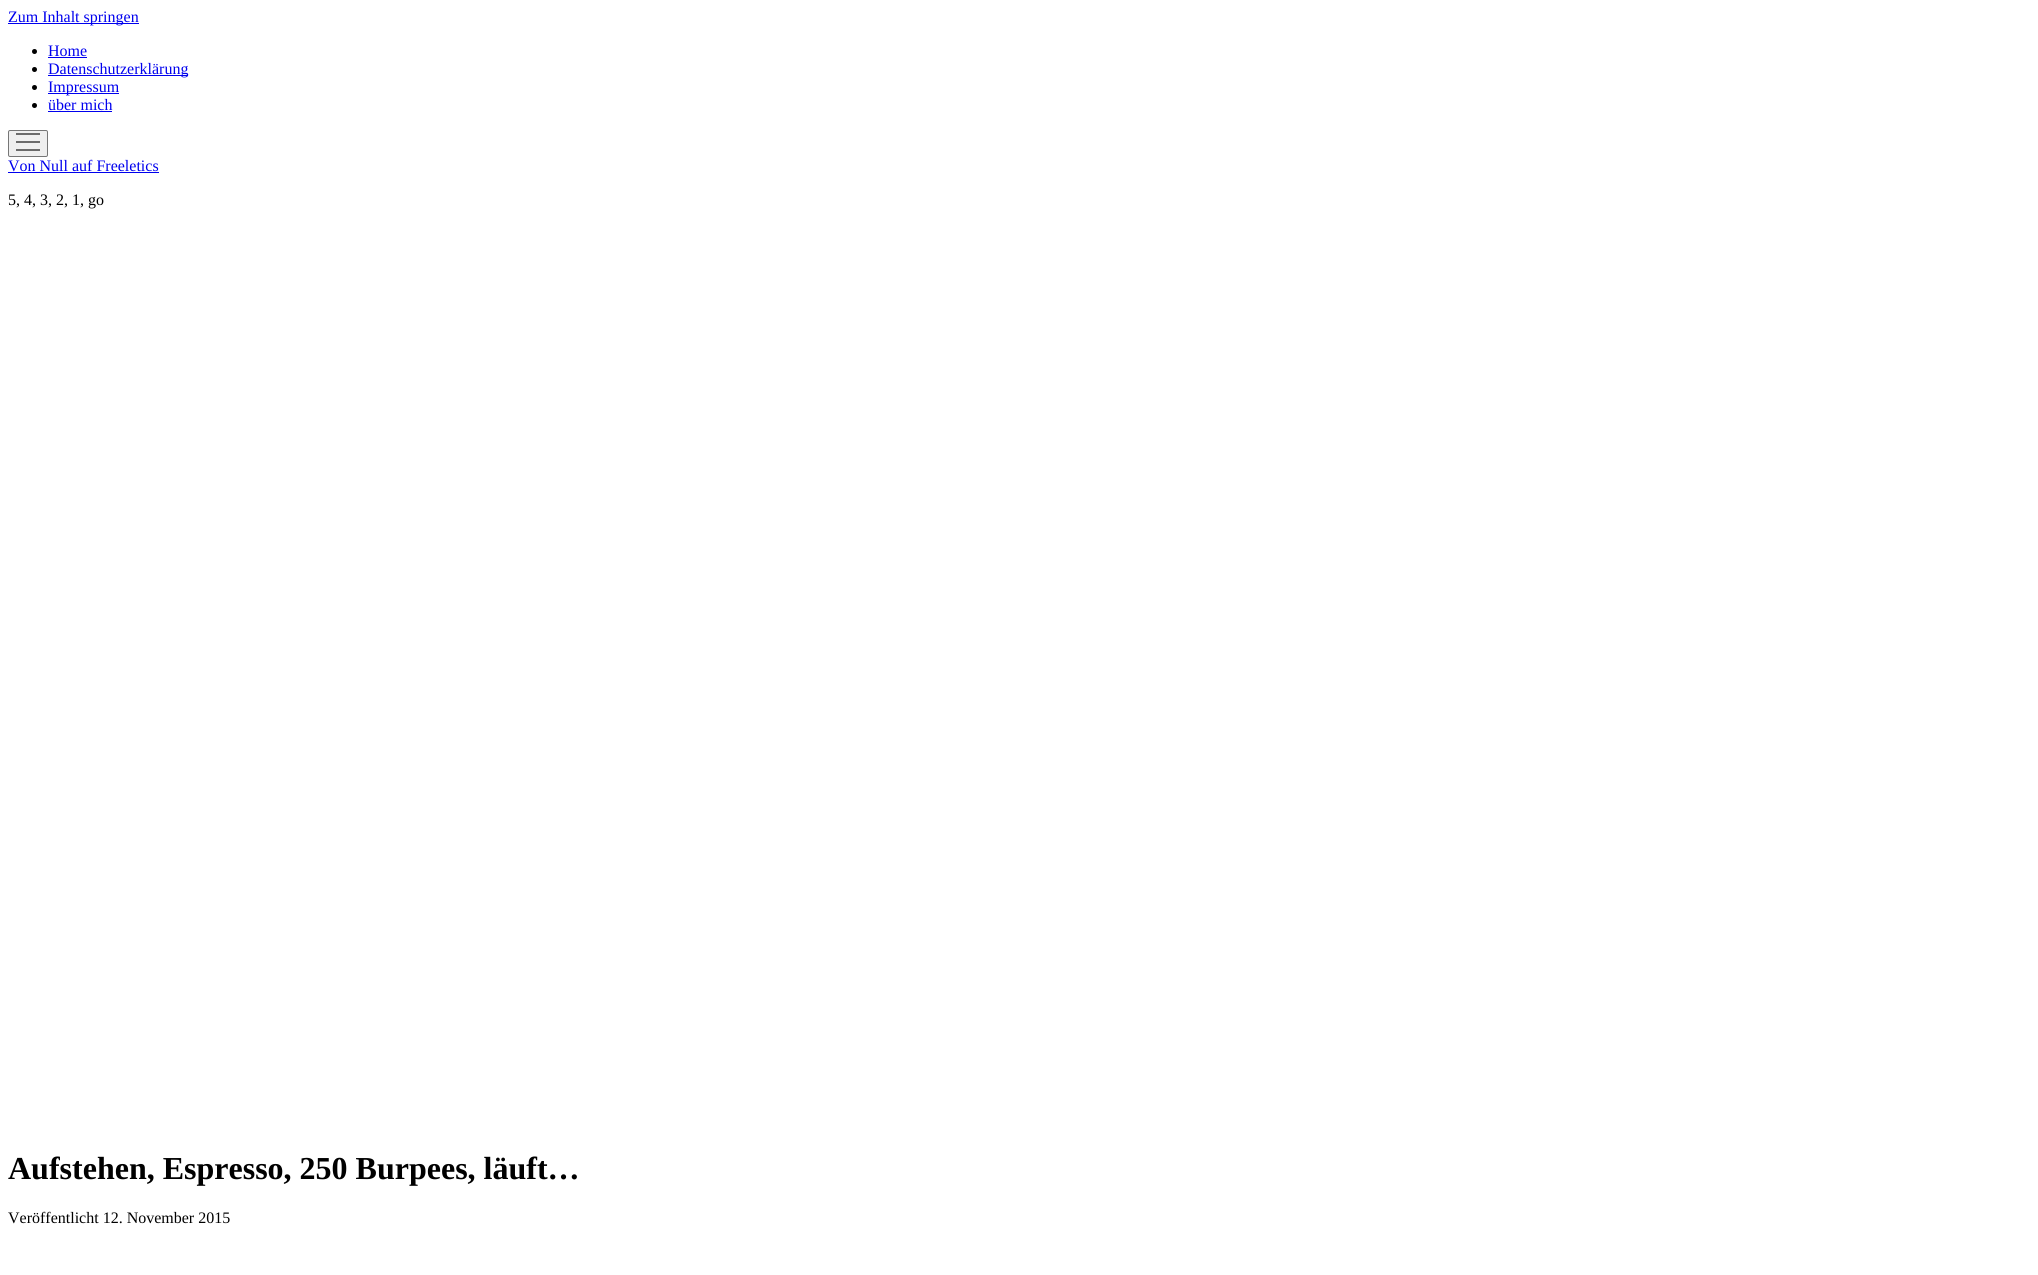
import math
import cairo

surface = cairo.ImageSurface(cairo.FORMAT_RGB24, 2038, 1275)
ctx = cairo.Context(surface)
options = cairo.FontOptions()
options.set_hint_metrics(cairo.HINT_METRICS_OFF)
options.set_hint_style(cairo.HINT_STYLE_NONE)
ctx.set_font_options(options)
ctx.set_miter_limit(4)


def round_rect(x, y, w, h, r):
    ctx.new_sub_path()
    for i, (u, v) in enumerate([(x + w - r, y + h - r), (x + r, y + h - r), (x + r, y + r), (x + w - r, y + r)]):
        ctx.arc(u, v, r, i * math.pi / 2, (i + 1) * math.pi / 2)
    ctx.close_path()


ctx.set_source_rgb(1, 1, 1)
ctx.paint()
ctx.set_source_rgb(0, 0, 0.933)
ctx.rectangle(8, 23, 131, 1)
ctx.fill()
ctx.select_font_face("Liberation Serif")
ctx.set_font_size(16)
ctx.move_to(8, 22)
ctx.show_text("Zum Inhalt springen")
ctx.set_source_rgb(0, 0, 0)
ctx.new_path()
ctx.arc(34.5, 51.5, 2.5, 0, 2 * math.pi)
ctx.fill()
ctx.set_source_rgb(0, 0, 0.933)
ctx.move_to(48, 56)
ctx.show_text("Home")
ctx.rectangle(48, 57, 39, 1)
ctx.fill()
ctx.set_source_rgb(0, 0, 0)
ctx.arc(34.5, 69.5, 2.5, 0, 2 * math.pi)
ctx.fill()
ctx.set_source_rgb(0, 0, 0.933)
ctx.rectangle(48, 75, 140, 1)
ctx.fill()
ctx.move_to(48, 74)
ctx.show_text("Datenschutzerklärung")
ctx.set_source_rgb(0, 0, 0)
ctx.new_path()
ctx.arc(34.5, 87.5, 2.5, 0, 2 * math.pi)
ctx.fill()
ctx.set_source_rgb(0, 0, 0.933)
ctx.rectangle(48, 93, 71, 1)
ctx.fill()
ctx.move_to(48, 92)
ctx.show_text("Impressum")
ctx.set_source_rgb(0, 0, 0)
ctx.new_path()
ctx.arc(34.5, 105.5, 2.5, 0, 2 * math.pi)
ctx.fill()
ctx.set_source_rgb(0, 0, 0.933)
ctx.move_to(48, 110)
ctx.show_text("über mich")
ctx.rectangle(48, 111, 64, 1)
ctx.fill()
ctx.set_source_rgb(0.937, 0.937, 0.937)
round_rect(8.5, 130.5, 39, 26, 1.5)
ctx.fill_preserve()
ctx.set_source_rgb(0.463, 0.463, 0.463)
ctx.set_line_width(1)
ctx.stroke()
ctx.set_source_rgb(0.42, 0.42, 0.42)
ctx.rectangle(16, 133, 24, 2)
ctx.fill()
ctx.rectangle(16, 141, 24, 2)
ctx.fill()
ctx.rectangle(16, 149, 24, 2)
ctx.fill()
ctx.set_source_rgb(0, 0, 0.933)
ctx.move_to(8, 171)
ctx.show_text("Von Null auf Freeletics")
ctx.rectangle(8, 172, 151, 1)
ctx.fill()
ctx.set_source_rgb(0, 0, 0)
ctx.move_to(8, 205)
ctx.show_text("5, 4, 3, 2, 1, go")
ctx.select_font_face("Liberation Serif", cairo.FONT_SLANT_NORMAL, cairo.FONT_WEIGHT_BOLD)
ctx.set_font_size(32)
ctx.move_to(8, 1179)
ctx.show_text("Aufstehen, Espresso, 250 Burpees, läuft…")
ctx.select_font_face("Liberation Serif")
ctx.set_font_size(16)
ctx.move_to(8, 1223)
ctx.show_text("Veröffentlicht 12. November 2015")
surface.write_to_png("page.png")
